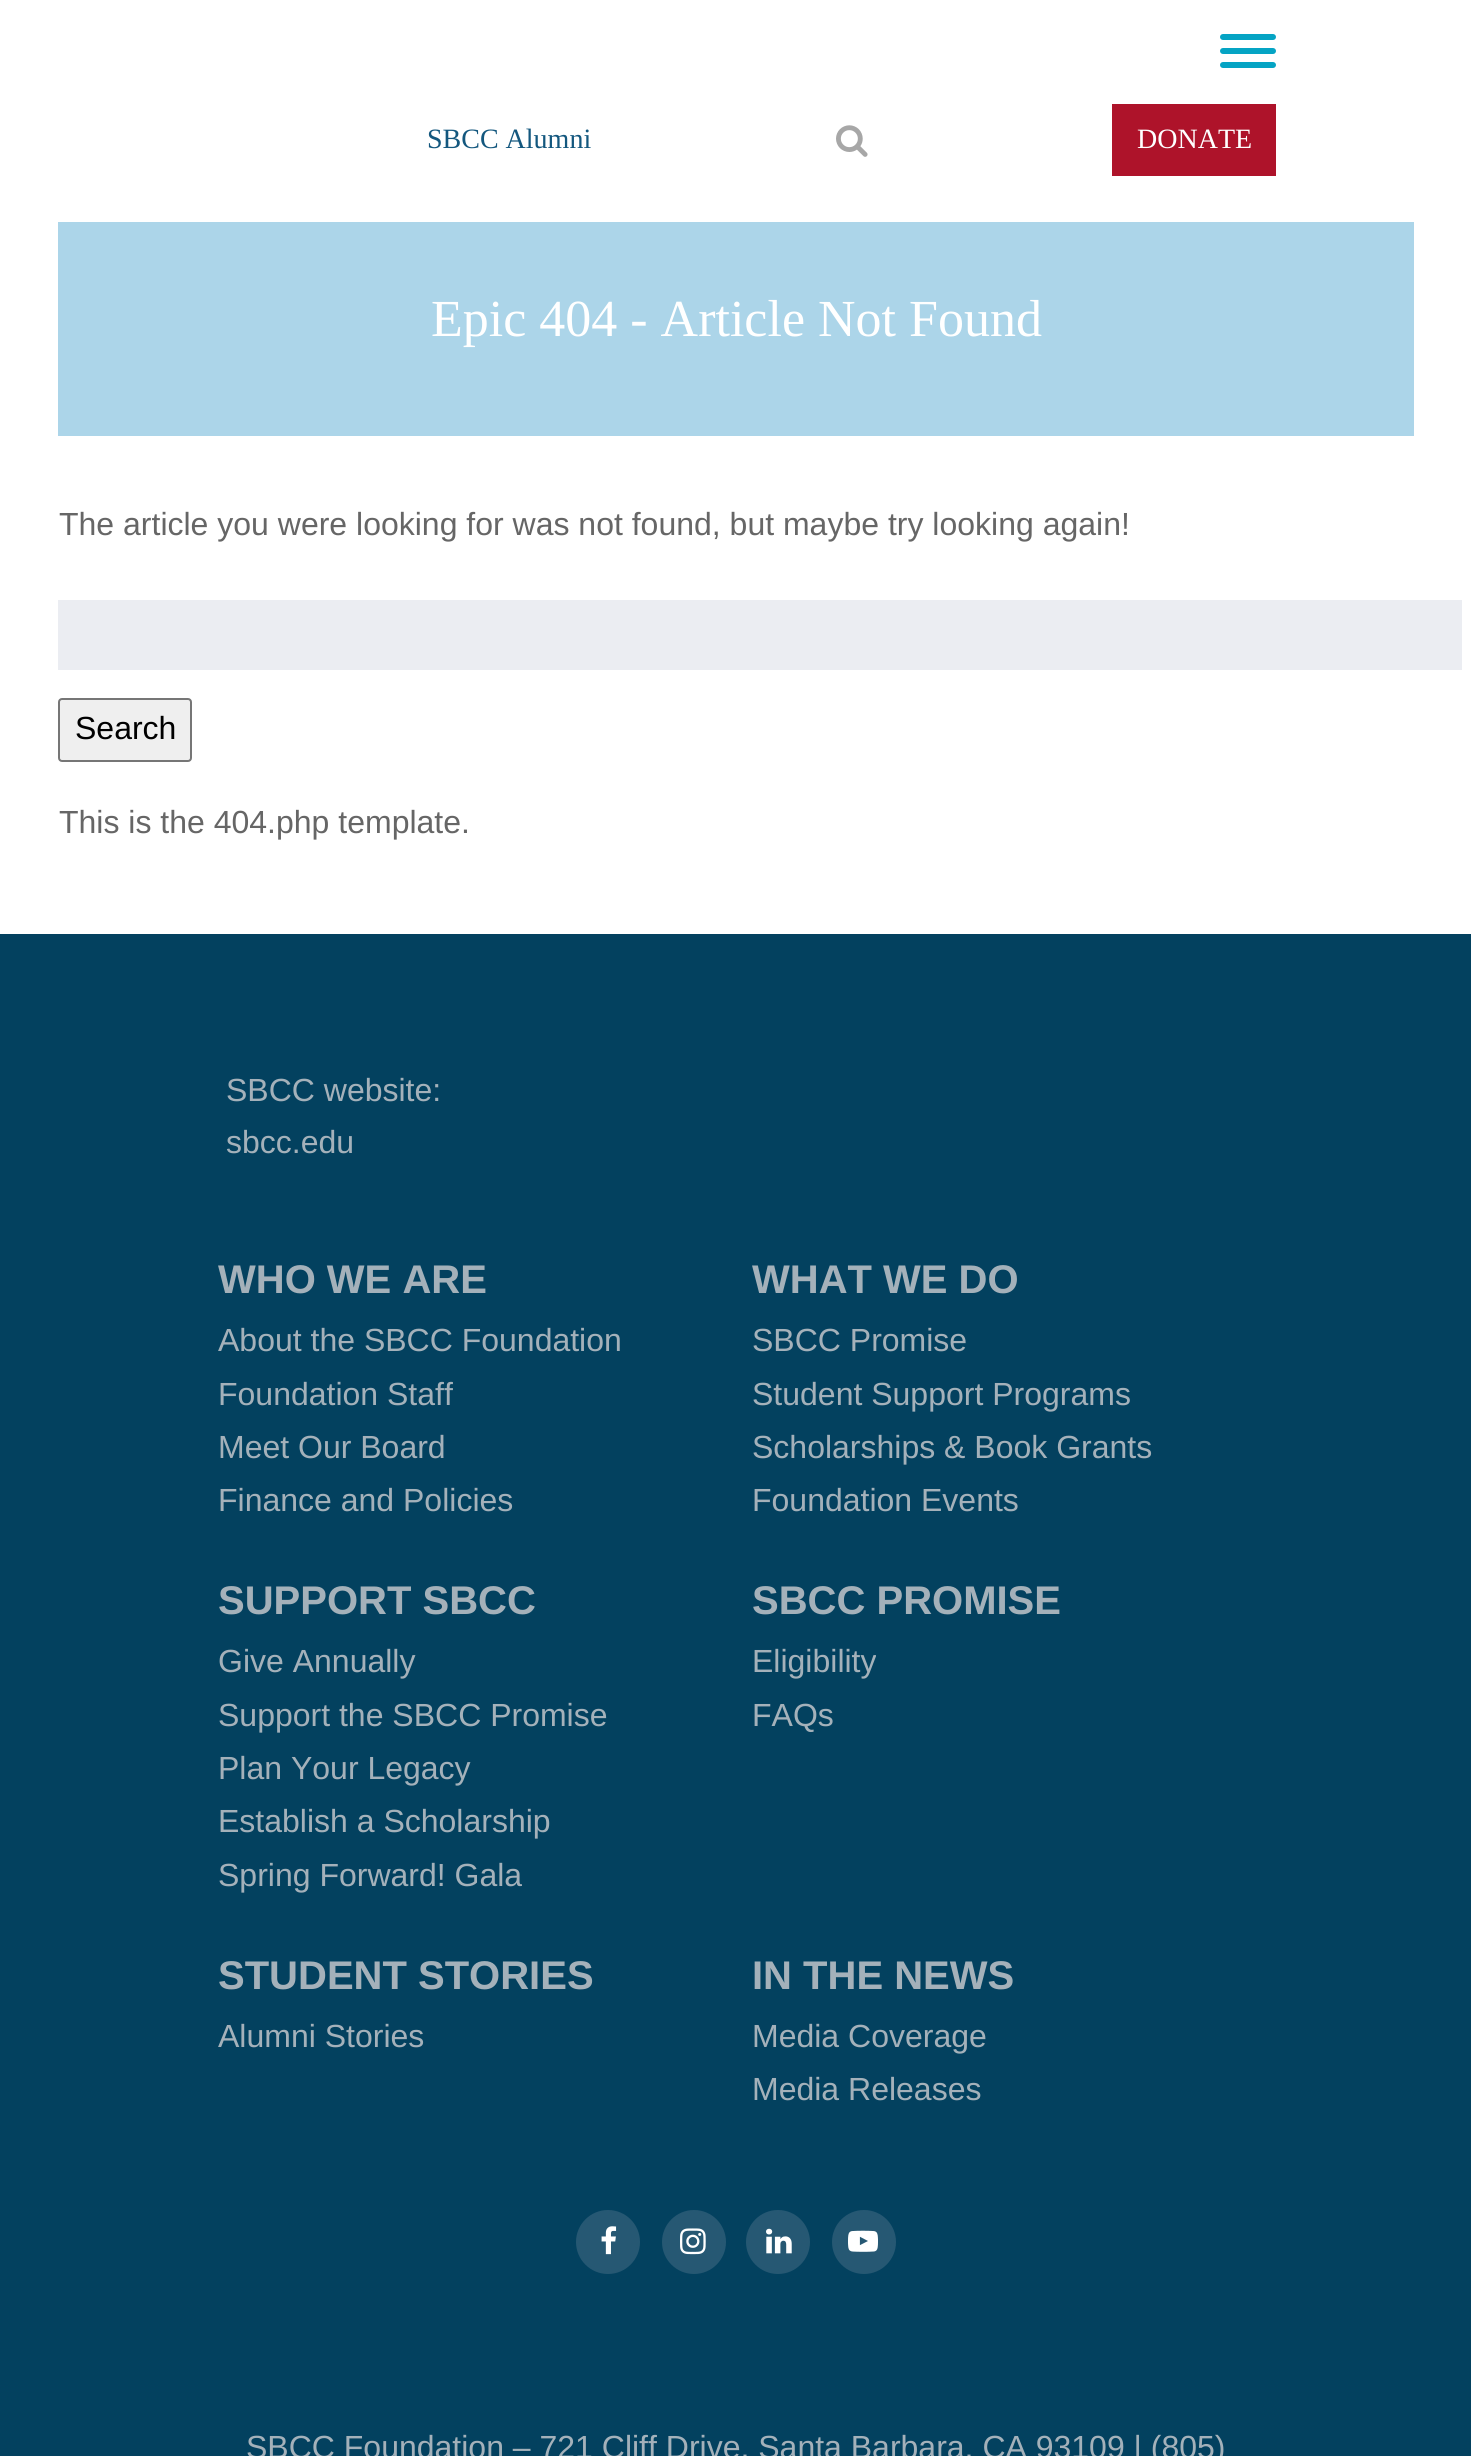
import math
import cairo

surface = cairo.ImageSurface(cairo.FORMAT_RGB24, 1471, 2456)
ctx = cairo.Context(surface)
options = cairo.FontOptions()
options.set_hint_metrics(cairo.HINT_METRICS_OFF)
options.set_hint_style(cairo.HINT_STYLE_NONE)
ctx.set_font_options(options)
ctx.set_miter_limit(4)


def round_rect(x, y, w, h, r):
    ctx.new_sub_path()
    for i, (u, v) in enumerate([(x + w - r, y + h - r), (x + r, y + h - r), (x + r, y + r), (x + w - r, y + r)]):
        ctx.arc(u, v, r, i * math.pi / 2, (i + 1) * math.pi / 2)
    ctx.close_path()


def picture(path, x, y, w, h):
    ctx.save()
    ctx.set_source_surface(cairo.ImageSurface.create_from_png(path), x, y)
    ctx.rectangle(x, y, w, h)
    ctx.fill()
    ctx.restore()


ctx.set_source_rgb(1, 1, 1)
ctx.paint()
ctx.set_source_rgb(0.02, 0.643, 0.769)
round_rect(1220, 48, 56, 6, 3)
ctx.fill()
round_rect(1220, 34, 56, 6, 3)
ctx.fill()
round_rect(1220, 62, 56, 6, 3)
ctx.fill()
ctx.select_font_face("Liberation Serif")
ctx.set_font_size(28)
ctx.set_source_rgb(0.075, 0.341, 0.494)
ctx.move_to(427, 148)
ctx.show_text("SBCC Alumni")
picture("img1.png", 836, 125, 32, 32)
ctx.set_source_rgb(0.682, 0.075, 0.165)
ctx.rectangle(1112, 104, 164, 72)
ctx.fill()
ctx.set_source_rgb(1, 1, 1)
ctx.move_to(1137, 148)
ctx.show_text("DONATE")
ctx.set_source_rgb(0.675, 0.835, 0.914)
ctx.rectangle(58, 222, 1356, 214)
ctx.fill()
ctx.set_font_size(52)
ctx.set_source_rgb(1, 1, 1)
ctx.move_to(431, 336)
ctx.show_text("Epic 404 - Article Not Found")
ctx.select_font_face("Liberation Sans")
ctx.set_font_size(32)
ctx.set_source_rgb(0.4, 0.4, 0.4)
ctx.move_to(59, 535)
ctx.show_text("The article you were looking for was not found, but maybe try looking again!")
ctx.set_source_rgb(0.918, 0.929, 0.949)
ctx.rectangle(58, 600, 1404, 70)
ctx.fill()
ctx.set_source_rgb(0.937, 0.937, 0.937)
round_rect(59, 699, 132, 62, 3)
ctx.fill_preserve()
ctx.set_source_rgb(0.463, 0.463, 0.463)
ctx.stroke()
ctx.set_source_rgb(0, 0, 0)
ctx.move_to(75, 739)
ctx.show_text("Search")
ctx.set_source_rgb(0.4, 0.4, 0.4)
ctx.move_to(59, 833)
ctx.show_text("This is the 404.php template.")
ctx.set_source_rgb(0.012, 0.255, 0.373)
ctx.rectangle(0, 934, 1471, 1522)
ctx.fill()
ctx.set_source_rgb(0.643, 0.694, 0.729)
ctx.move_to(226, 1101)
ctx.show_text("SBCC website:")
ctx.move_to(226, 1153)
ctx.show_text("sbcc.edu")
ctx.select_font_face("Liberation Sans", cairo.FONT_SLANT_NORMAL, cairo.FONT_WEIGHT_BOLD)
ctx.set_font_size(40)
ctx.move_to(218, 1293)
ctx.show_text("WHO WE ARE")
ctx.select_font_face("Liberation Sans")
ctx.set_font_size(32)
ctx.move_to(218, 1351)
ctx.show_text("About the SBCC Foundation")
ctx.move_to(218, 1405)
ctx.show_text("Foundation Staff")
ctx.move_to(218, 1458)
ctx.show_text("Meet Our Board")
ctx.move_to(218, 1511)
ctx.show_text("Finance and Policies")
ctx.select_font_face("Liberation Sans", cairo.FONT_SLANT_NORMAL, cairo.FONT_WEIGHT_BOLD)
ctx.set_font_size(40)
ctx.move_to(752, 1293)
ctx.show_text("WHAT WE DO")
ctx.select_font_face("Liberation Sans")
ctx.set_font_size(32)
ctx.move_to(752, 1351)
ctx.show_text("SBCC Promise")
ctx.move_to(752, 1405)
ctx.show_text("Student Support Programs")
ctx.move_to(752, 1458)
ctx.show_text("Scholarships & Book Grants")
ctx.move_to(752, 1511)
ctx.show_text("Foundation Events")
ctx.select_font_face("Liberation Sans", cairo.FONT_SLANT_NORMAL, cairo.FONT_WEIGHT_BOLD)
ctx.set_font_size(40)
ctx.move_to(218, 1614)
ctx.show_text("SUPPORT SBCC")
ctx.select_font_face("Liberation Sans")
ctx.set_font_size(32)
ctx.move_to(218, 1672)
ctx.show_text("Give Annually")
ctx.move_to(218, 1726)
ctx.show_text("Support the SBCC Promise")
ctx.move_to(218, 1779)
ctx.show_text("Plan Your Legacy")
ctx.move_to(218, 1832)
ctx.show_text("Establish a Scholarship")
ctx.move_to(218, 1886)
ctx.show_text("Spring Forward! Gala")
ctx.select_font_face("Liberation Sans", cairo.FONT_SLANT_NORMAL, cairo.FONT_WEIGHT_BOLD)
ctx.set_font_size(40)
ctx.move_to(752, 1614)
ctx.show_text("SBCC PROMISE")
ctx.select_font_face("Liberation Sans")
ctx.set_font_size(32)
ctx.move_to(752, 1672)
ctx.show_text("Eligibility")
ctx.move_to(752, 1726)
ctx.show_text("FAQs")
ctx.select_font_face("Liberation Sans", cairo.FONT_SLANT_NORMAL, cairo.FONT_WEIGHT_BOLD)
ctx.set_font_size(40)
ctx.move_to(218, 1989)
ctx.show_text("STUDENT STORIES")
ctx.select_font_face("Liberation Sans")
ctx.set_font_size(32)
ctx.move_to(218, 2047)
ctx.show_text("Alumni Stories")
ctx.select_font_face("Liberation Sans", cairo.FONT_SLANT_NORMAL, cairo.FONT_WEIGHT_BOLD)
ctx.set_font_size(40)
ctx.move_to(752, 1989)
ctx.show_text("IN THE NEWS")
ctx.select_font_face("Liberation Sans")
ctx.set_font_size(32)
ctx.move_to(752, 2047)
ctx.show_text("Media Coverage")
ctx.move_to(752, 2100)
ctx.show_text("Media Releases")
ctx.set_source_rgb(0.149, 0.345, 0.451)
ctx.new_path()
ctx.arc(608, 2242, 32, 0, 2 * math.pi)
ctx.fill()
picture("img2.png", 601, 2226, 16, 29)
ctx.arc(694, 2242, 32, 0, 2 * math.pi)
ctx.fill()
picture("img3.png", 680, 2228, 26, 27)
ctx.arc(778, 2242, 32, 0, 2 * math.pi)
ctx.fill()
picture("img4.png", 766, 2228, 26, 26)
ctx.arc(864, 2242, 32, 0, 2 * math.pi)
ctx.fill()
picture("img5.png", 848, 2230, 30, 22)
ctx.set_source_rgb(0.643, 0.694, 0.729)
ctx.move_to(246, 2458)
ctx.show_text("SBCC Foundation – 721 Cliff Drive, Santa Barbara, CA 93109 | (805)")
surface.write_to_png("page.png")
